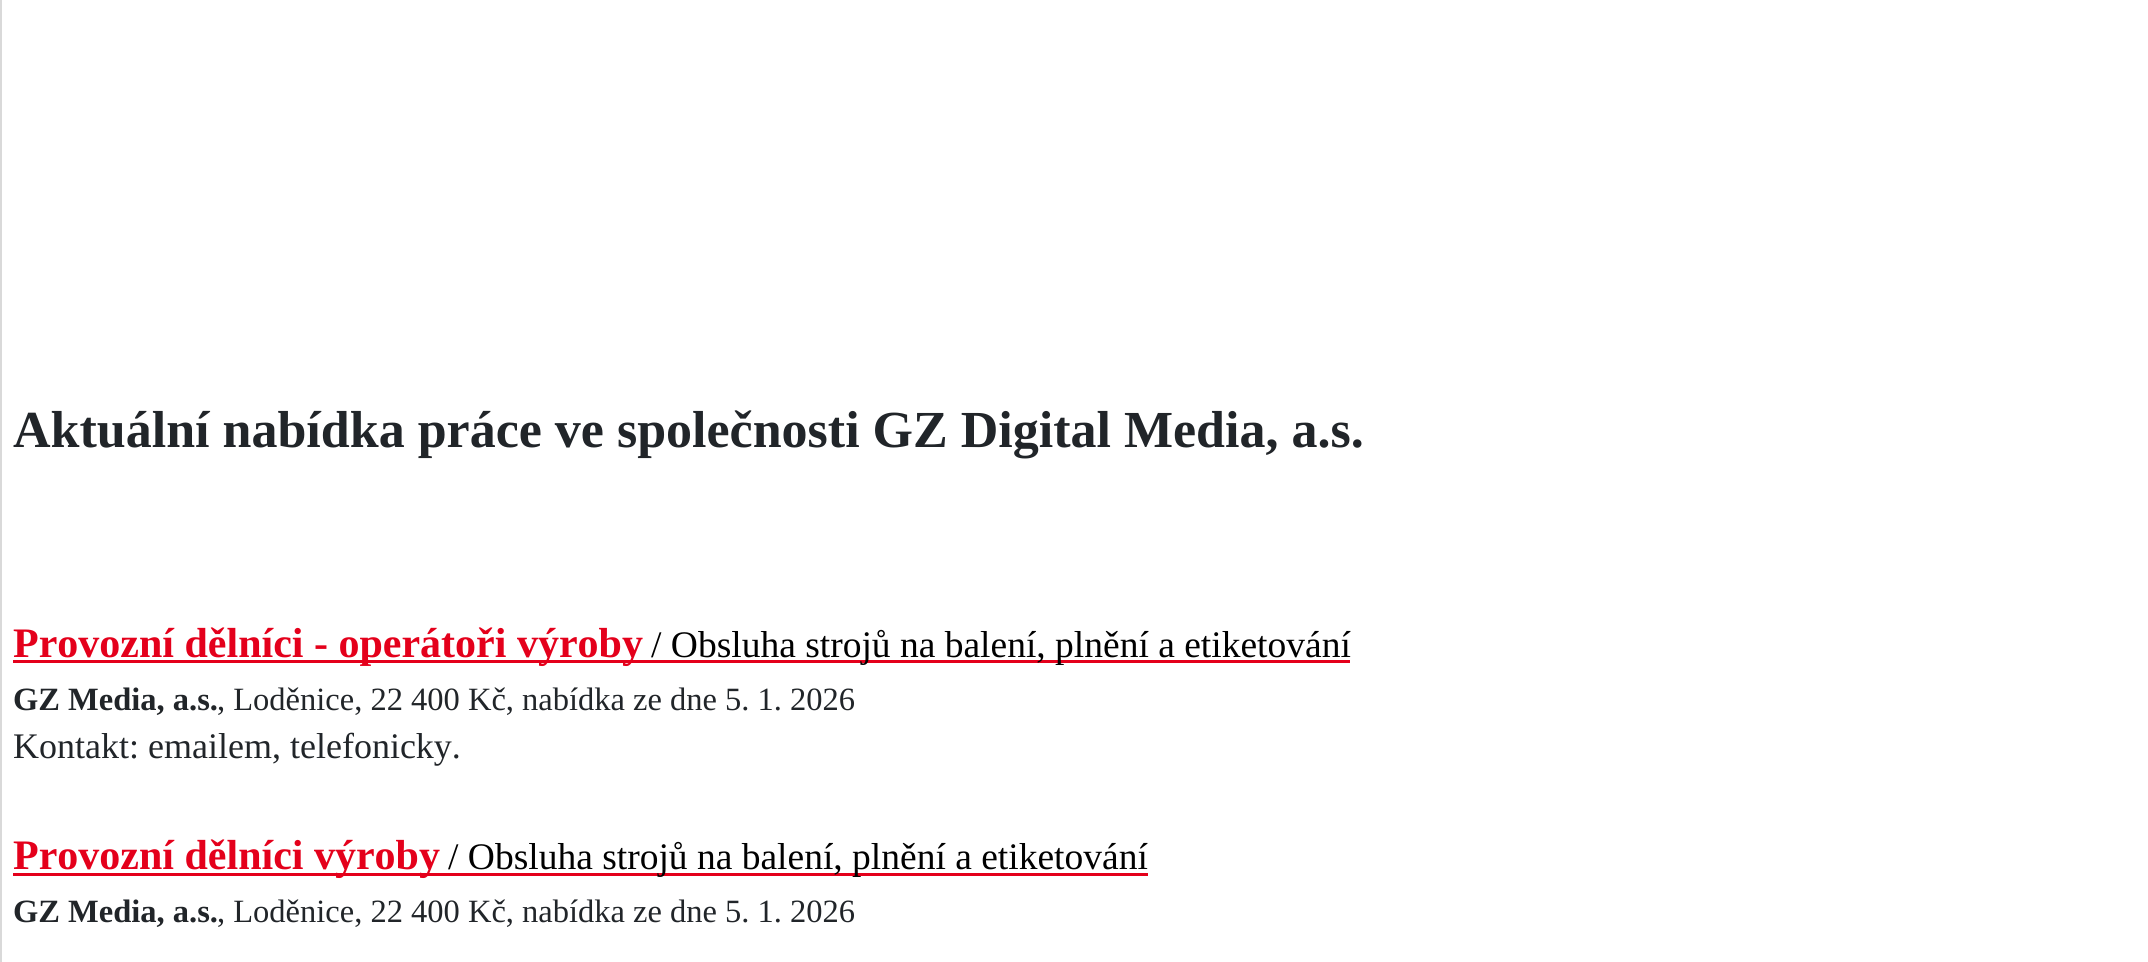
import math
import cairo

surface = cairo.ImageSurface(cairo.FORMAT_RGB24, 2148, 962)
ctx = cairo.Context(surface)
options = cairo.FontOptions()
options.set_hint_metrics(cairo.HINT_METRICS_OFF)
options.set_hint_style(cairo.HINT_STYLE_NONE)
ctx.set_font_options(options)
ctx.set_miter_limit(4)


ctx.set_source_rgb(1, 1, 1)
ctx.paint()
ctx.set_source_rgb(0.851, 0.851, 0.851)
ctx.set_fill_rule(cairo.FILL_RULE_EVEN_ODD)
ctx.new_path()
ctx.move_to(0, -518)
ctx.line_to(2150, -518)
ctx.line_to(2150, 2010)
ctx.curve_to(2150, 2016, 2146, 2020, 2140, 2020)
ctx.line_to(10, 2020)
ctx.curve_to(4, 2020, 0, 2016, 0, 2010)
ctx.close_path()
ctx.move_to(2, -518)
ctx.line_to(2148, -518)
ctx.line_to(2148, 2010)
ctx.curve_to(2148, 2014, 2144, 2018, 2140, 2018)
ctx.line_to(10, 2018)
ctx.curve_to(6, 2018, 2, 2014, 2, 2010)
ctx.close_path()
ctx.fill()
ctx.select_font_face("Liberation Serif", cairo.FONT_SLANT_NORMAL, cairo.FONT_WEIGHT_BOLD)
ctx.set_font_size(52)
ctx.set_source_rgb(0.129, 0.145, 0.161)
ctx.move_to(13, 447)
ctx.show_text("Aktuální nabídka práce ve společnosti GZ Digital Media, a.s.")
ctx.set_source_rgb(0.894, 0, 0.106)
ctx.rectangle(13, 660, 1337, 3)
ctx.fill()
ctx.set_font_size(42)
ctx.move_to(13, 657)
ctx.show_text("Provozní dělníci - operátoři výroby")
ctx.select_font_face("Liberation Serif")
ctx.set_font_size(37.5)
ctx.set_source_rgb(0, 0, 0)
ctx.move_to(651, 657)
ctx.show_text("/ Obsluha strojů na balení, plnění a etiketování")
ctx.select_font_face("Liberation Serif", cairo.FONT_SLANT_NORMAL, cairo.FONT_WEIGHT_BOLD)
ctx.set_font_size(32.5)
ctx.set_source_rgb(0.129, 0.145, 0.161)
ctx.move_to(13, 710)
ctx.show_text("GZ Media, a.s.")
ctx.select_font_face("Liberation Serif")
ctx.move_to(217, 710)
ctx.show_text(", Loděnice, 22 400 Kč, nabídka ze dne 5. 1. 2026")
ctx.set_font_size(36)
ctx.move_to(13, 758)
ctx.show_text("Kontakt: emailem, telefonicky.")
ctx.set_source_rgb(0.894, 0, 0.106)
ctx.rectangle(13, 873, 1135, 3)
ctx.fill()
ctx.select_font_face("Liberation Serif", cairo.FONT_SLANT_NORMAL, cairo.FONT_WEIGHT_BOLD)
ctx.set_font_size(42)
ctx.move_to(13, 869)
ctx.show_text("Provozní dělníci výroby")
ctx.select_font_face("Liberation Serif")
ctx.set_font_size(37.5)
ctx.set_source_rgb(0, 0, 0)
ctx.move_to(448, 869)
ctx.show_text("/ Obsluha strojů na balení, plnění a etiketování")
ctx.select_font_face("Liberation Serif", cairo.FONT_SLANT_NORMAL, cairo.FONT_WEIGHT_BOLD)
ctx.set_font_size(32.5)
ctx.set_source_rgb(0.129, 0.145, 0.161)
ctx.move_to(13, 922)
ctx.show_text("GZ Media, a.s.")
ctx.select_font_face("Liberation Serif")
ctx.move_to(217, 922)
ctx.show_text(", Loděnice, 22 400 Kč, nabídka ze dne 5. 1. 2026")
surface.write_to_png("page.png")
